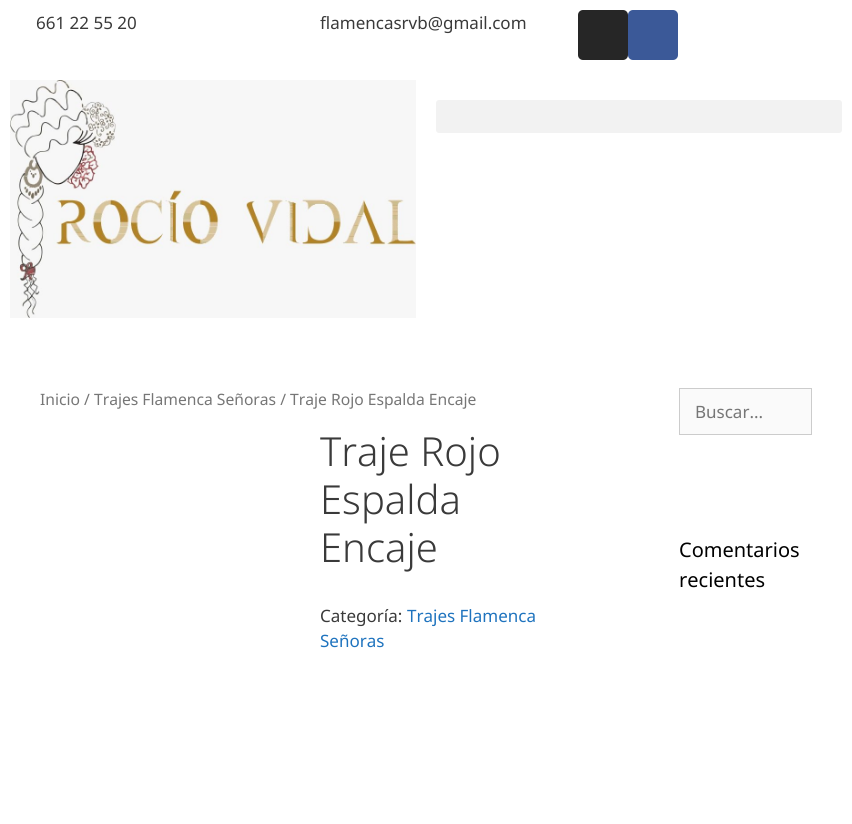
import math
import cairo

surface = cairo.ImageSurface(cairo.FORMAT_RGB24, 852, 824)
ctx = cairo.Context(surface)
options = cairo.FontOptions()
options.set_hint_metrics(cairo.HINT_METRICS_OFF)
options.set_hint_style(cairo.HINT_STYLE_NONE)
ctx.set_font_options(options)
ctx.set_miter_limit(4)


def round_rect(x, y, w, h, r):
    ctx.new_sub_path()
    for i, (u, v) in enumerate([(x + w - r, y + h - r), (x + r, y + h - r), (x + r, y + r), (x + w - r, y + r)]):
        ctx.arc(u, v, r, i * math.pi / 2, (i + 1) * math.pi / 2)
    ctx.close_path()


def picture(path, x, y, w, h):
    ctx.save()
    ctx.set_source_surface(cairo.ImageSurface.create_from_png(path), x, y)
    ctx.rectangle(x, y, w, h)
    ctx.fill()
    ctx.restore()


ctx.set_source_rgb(1, 1, 1)
ctx.paint()
ctx.select_font_face("Noto Sans")
ctx.set_font_size(17)
ctx.set_source_rgb(0.227, 0.227, 0.227)
ctx.move_to(36, 29)
ctx.show_text("661 22 55 20")
ctx.move_to(320, 29)
ctx.show_text("flamencasrvb@gmail.com")
ctx.set_source_rgb(0.149, 0.149, 0.149)
round_rect(578, 10, 50, 50, 5)
ctx.fill()
ctx.set_source_rgb(0.231, 0.349, 0.596)
round_rect(628, 10, 50, 50, 5)
ctx.fill()
picture("img1.png", 10, 80, 406, 238)
ctx.set_source_rgb(0.949, 0.949, 0.949)
round_rect(436, 100, 406, 33, 3)
ctx.fill()
ctx.set_font_size(15.65)
ctx.set_source_rgb(0.463, 0.463, 0.463)
ctx.move_to(40, 405)
ctx.show_text("Inicio / Trajes Flamenca Señoras / Traje Rojo Espalda Encaje")
ctx.select_font_face("Noto Sans Light")
ctx.set_font_size(40)
ctx.set_source_rgb(0.227, 0.227, 0.227)
ctx.move_to(320, 466)
ctx.show_text("Traje Rojo")
ctx.move_to(320, 514)
ctx.show_text("Espalda")
ctx.move_to(320, 562)
ctx.show_text("Encaje")
ctx.select_font_face("Noto Sans")
ctx.set_font_size(17)
ctx.move_to(320, 622)
ctx.show_text("Categoría:")
ctx.set_source_rgb(0.118, 0.451, 0.745)
ctx.move_to(407, 622)
ctx.show_text("Trajes Flamenca")
ctx.move_to(320, 647)
ctx.show_text("Señoras")
ctx.set_source_rgb(0.98, 0.98, 0.98)
ctx.rectangle(679.5, 388.5, 132, 46)
ctx.fill_preserve()
ctx.set_source_rgb(0.8, 0.8, 0.8)
ctx.set_line_width(1)
ctx.stroke()
ctx.set_source_rgb(0.463, 0.463, 0.463)
ctx.move_to(695, 418)
ctx.show_text("Buscar...")
ctx.set_font_size(20)
ctx.set_source_rgb(0, 0, 0)
ctx.move_to(679, 557)
ctx.show_text("Comentarios")
ctx.move_to(679, 587)
ctx.show_text("recientes")
surface.write_to_png("page.png")
